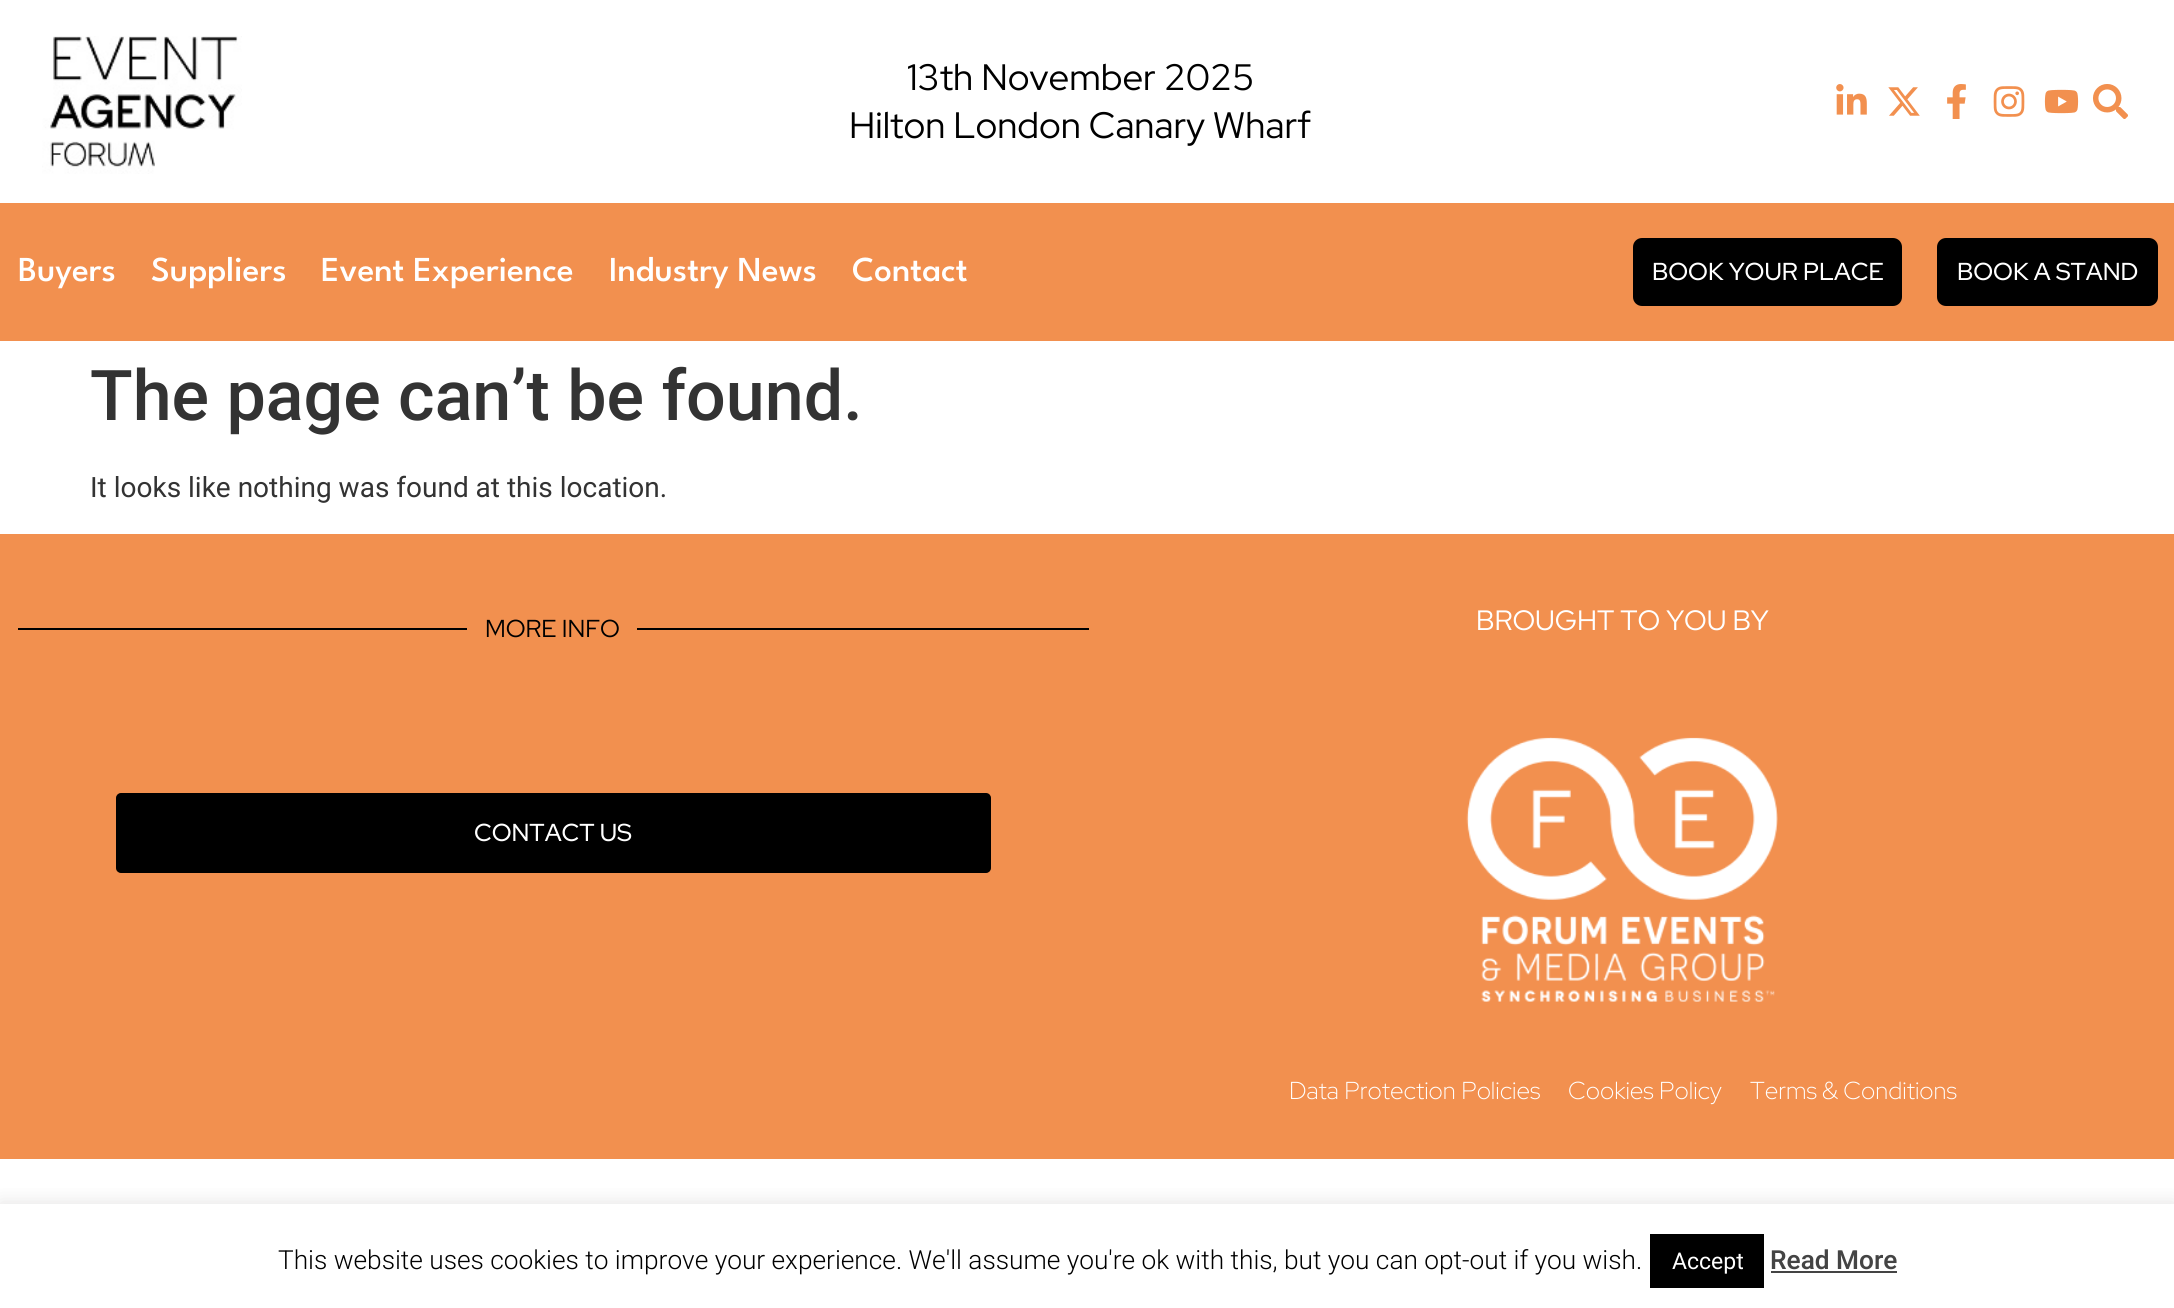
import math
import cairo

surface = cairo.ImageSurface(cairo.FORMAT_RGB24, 2174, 1308)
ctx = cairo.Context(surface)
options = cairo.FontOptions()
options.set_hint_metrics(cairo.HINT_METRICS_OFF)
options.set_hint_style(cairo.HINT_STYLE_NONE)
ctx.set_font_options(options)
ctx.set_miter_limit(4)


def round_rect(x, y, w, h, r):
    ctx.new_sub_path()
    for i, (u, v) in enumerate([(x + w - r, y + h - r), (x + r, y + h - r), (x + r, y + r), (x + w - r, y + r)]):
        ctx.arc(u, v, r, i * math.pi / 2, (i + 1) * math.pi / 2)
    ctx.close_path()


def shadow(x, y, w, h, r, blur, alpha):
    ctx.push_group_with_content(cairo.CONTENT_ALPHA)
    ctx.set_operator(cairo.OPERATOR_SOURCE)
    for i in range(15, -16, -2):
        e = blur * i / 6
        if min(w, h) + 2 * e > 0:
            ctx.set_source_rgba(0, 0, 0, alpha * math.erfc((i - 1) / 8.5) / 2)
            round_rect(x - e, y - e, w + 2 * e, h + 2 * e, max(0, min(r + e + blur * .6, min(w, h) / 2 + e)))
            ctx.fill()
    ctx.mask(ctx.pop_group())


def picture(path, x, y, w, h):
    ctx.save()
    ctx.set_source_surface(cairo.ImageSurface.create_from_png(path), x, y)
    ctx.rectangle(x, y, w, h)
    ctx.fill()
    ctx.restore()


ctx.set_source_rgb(1, 1, 1)
ctx.paint()
picture("img1.png", 42, 36, 200, 138)
ctx.select_font_face("Red Hat Display")
ctx.set_font_size(36.75)
ctx.set_source_rgb(0, 0, 0)
ctx.move_to(907, 90)
ctx.show_text("13th November 2025")
ctx.move_to(849, 138)
ctx.show_text("Hilton London Canary Wharf")
picture("img2.png", 1836, 84, 31, 31)
picture("img3.png", 1888, 87, 32, 29)
picture("img4.png", 1947, 84, 19, 35)
picture("img5.png", 1993, 86, 32, 31)
picture("img6.png", 2044, 89, 35, 25)
picture("img7.png", 2093, 84, 35, 35)
ctx.set_source_rgb(0.949, 0.565, 0.31)
ctx.rectangle(0, 203, 2174, 138)
ctx.fill()
ctx.select_font_face("League Spartan Medium")
ctx.set_font_size(35)
ctx.set_source_rgb(1, 1, 1)
ctx.move_to(18, 281)
ctx.show_text("Buyers")
ctx.move_to(151, 281)
ctx.show_text("Suppliers")
ctx.move_to(321, 281)
ctx.show_text("Event Experience")
ctx.move_to(609, 281)
ctx.show_text("Industry News")
ctx.move_to(852, 281)
ctx.show_text("Contact")
ctx.set_source_rgb(0, 0, 0)
round_rect(1634, 239, 267, 66, 8)
ctx.fill_preserve()
ctx.stroke()
ctx.select_font_face("Red Hat Display Medium")
ctx.set_font_size(24.5)
ctx.set_source_rgb(1, 1, 1)
ctx.move_to(1652, 280)
ctx.show_text("BOOK YOUR PLACE")
ctx.set_source_rgb(0, 0, 0)
round_rect(1938, 239, 219, 66, 8)
ctx.fill_preserve()
ctx.stroke()
ctx.set_source_rgb(1, 1, 1)
ctx.move_to(1957, 280)
ctx.show_text("BOOK A STAND")
ctx.select_font_face("Roboto Medium")
ctx.set_font_size(70)
ctx.set_source_rgb(0.2, 0.2, 0.2)
ctx.move_to(90, 420)
ctx.show_text("The page can’t be found.")
ctx.select_font_face("Roboto")
ctx.set_font_size(28)
ctx.move_to(90, 497)
ctx.show_text("It looks like nothing was found at this location.")
ctx.set_source_rgb(0.949, 0.565, 0.31)
ctx.rectangle(0, 534, 2174, 625)
ctx.fill()
ctx.set_source_rgb(0, 0, 0)
ctx.rectangle(18, 628, 449, 2)
ctx.fill()
ctx.select_font_face("Red Hat Display")
ctx.set_font_size(24.5)
ctx.move_to(485, 637)
ctx.show_text("MORE INFO")
ctx.rectangle(637, 628, 452, 2)
ctx.fill()
round_rect(117, 794, 873, 78, 4)
ctx.fill_preserve()
ctx.stroke()
ctx.select_font_face("Red Hat Display Medium")
ctx.set_source_rgb(1, 1, 1)
ctx.move_to(474, 841)
ctx.show_text("CONTACT US")
ctx.select_font_face("Red Hat Display")
ctx.set_font_size(28)
ctx.move_to(1476, 630)
ctx.show_text("BROUGHT TO YOU BY")
picture("img8.png", 1466, 737, 312, 265)
ctx.select_font_face("Red Hat Display Light")
ctx.set_font_size(24.5)
ctx.move_to(1289, 1099)
ctx.show_text("Data Protection Policies")
ctx.move_to(1568, 1099)
ctx.show_text("Cookies Policy")
ctx.move_to(1750, 1099)
ctx.show_text("Terms & Conditions")
ctx.save()
ctx.rectangle(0, 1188, 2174, 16)
ctx.clip()
ctx.set_source_rgb(0.675, 0.671, 0.671)
shadow(0, 1202, 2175, 105, 0, 9, 0.3)
ctx.restore()
ctx.select_font_face("Roboto Light")
ctx.set_font_size(26.25)
ctx.set_source_rgb(0, 0, 0)
ctx.move_to(278, 1269)
ctx.show_text("This website uses cookies to improve your experience. We'll assume you're ok with this, but you can opt-out if you wish.")
ctx.rectangle(1650, 1234, 114, 54)
ctx.fill()
ctx.select_font_face("Roboto")
ctx.set_font_size(23)
ctx.set_source_rgb(1, 1, 1)
ctx.move_to(1672, 1269)
ctx.show_text("Accept")
ctx.select_font_face("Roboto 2 Medium")
ctx.set_font_size(26.25)
ctx.set_source_rgb(0.267, 0.267, 0.267)
ctx.move_to(1770, 1269)
ctx.show_text("Read More")
ctx.rectangle(1771, 1271, 126, 2)
ctx.fill()
surface.write_to_png("page.png")
